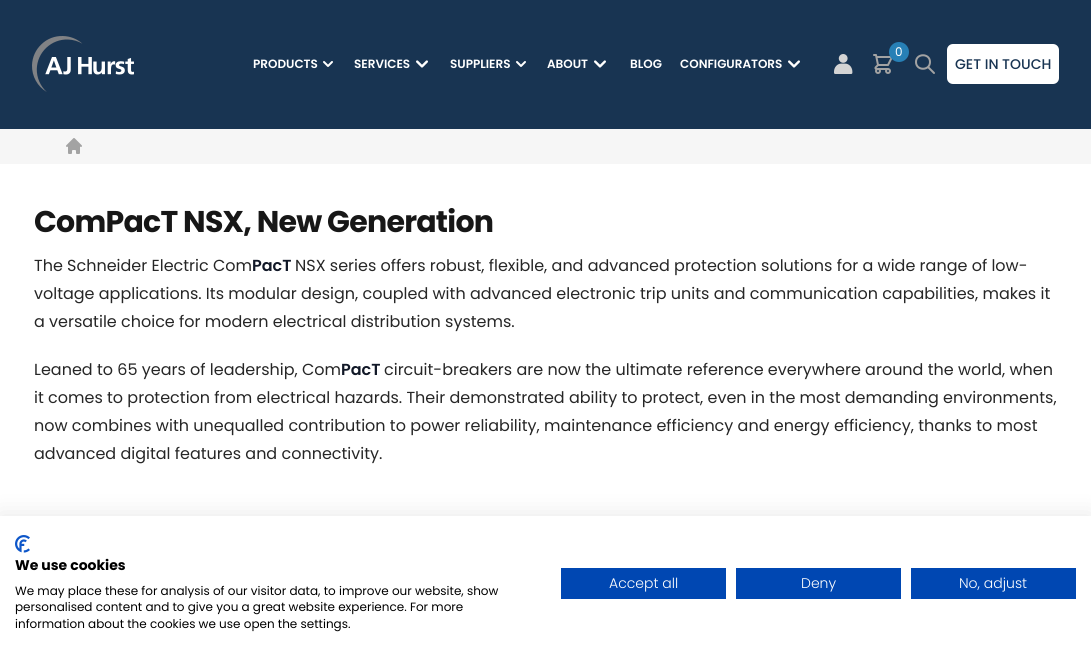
import math
import cairo

surface = cairo.ImageSurface(cairo.FORMAT_RGB24, 1091, 660)
ctx = cairo.Context(surface)
options = cairo.FontOptions()
options.set_hint_metrics(cairo.HINT_METRICS_OFF)
options.set_hint_style(cairo.HINT_STYLE_NONE)
ctx.set_font_options(options)
ctx.set_miter_limit(4)


def spaced_text(x, y, s, letter, word):
    ctx.move_to(x, y)
    for ch in s:
        ctx.show_text(ch)
        ctx.rel_move_to(letter + word * (ch == ' '), 0)


def round_rect(x, y, w, h, r):
    ctx.new_sub_path()
    for i, (u, v) in enumerate([(x + w - r, y + h - r), (x + r, y + h - r), (x + r, y + r), (x + w - r, y + r)]):
        ctx.arc(u, v, r, i * math.pi / 2, (i + 1) * math.pi / 2)
    ctx.close_path()


def shadow(x, y, w, h, r, blur, alpha):
    ctx.push_group_with_content(cairo.CONTENT_ALPHA)
    ctx.set_operator(cairo.OPERATOR_SOURCE)
    for i in range(15, -16, -2):
        e = blur * i / 6
        if min(w, h) + 2 * e > 0:
            ctx.set_source_rgba(0, 0, 0, alpha * math.erfc((i - 1) / 8.5) / 2)
            round_rect(x - e, y - e, w + 2 * e, h + 2 * e, max(0, min(r + e + blur * .6, min(w, h) / 2 + e)))
            ctx.fill()
    ctx.mask(ctx.pop_group())


def picture(path, x, y, w, h):
    ctx.save()
    ctx.set_source_surface(cairo.ImageSurface.create_from_png(path), x, y)
    ctx.rectangle(x, y, w, h)
    ctx.fill()
    ctx.restore()


ctx.set_source_rgb(1, 1, 1)
ctx.paint()
ctx.set_source_rgb(0.094, 0.204, 0.322)
ctx.rectangle(0, 0, 1091, 129)
ctx.fill()
picture("img1.png", 32, 36, 102, 56)
ctx.select_font_face("Poppins SemiBold")
ctx.set_font_size(12)
ctx.set_source_rgb(1, 1, 1)
ctx.move_to(253, 68)
ctx.show_text("PRODUCTS")
picture("img2.png", 323, 61, 10, 6)
ctx.move_to(354, 68)
ctx.show_text("SERVICES")
picture("img3.png", 416, 60, 12, 8)
ctx.move_to(450, 68)
ctx.show_text("SUPPLIERS")
picture("img2.png", 516, 61, 10, 6)
ctx.move_to(547, 68)
ctx.show_text("ABOUT")
picture("img3.png", 594, 60, 12, 8)
ctx.move_to(630, 68)
ctx.show_text("BLOG")
ctx.move_to(680, 68)
ctx.show_text("CONFIGURATORS")
picture("img3.png", 788, 60, 12, 8)
picture("img4.png", 834, 54, 19, 20)
picture("img5.png", 873, 54, 19, 20)
ctx.set_source_rgb(0.153, 0.502, 0.714)
ctx.arc(899, 52, 10, 0, 2 * math.pi)
ctx.fill()
ctx.select_font_face("Poppins")
ctx.set_source_rgb(1, 1, 1)
ctx.move_to(895, 56)
ctx.show_text("0")
ctx.new_path()
ctx.move_to(934, 73)
ctx.line_to(928, 67)
ctx.move_to(930, 62)
ctx.curve_to(930, 71, 916, 71, 916, 62)
ctx.curve_to(916, 53, 930, 53, 930, 62)
ctx.close_path()
ctx.set_source_rgb(0.639, 0.639, 0.639)
ctx.set_line_cap(cairo.LINE_CAP_ROUND)
ctx.set_line_join(cairo.LINE_JOIN_ROUND)
ctx.stroke()
ctx.set_source_rgb(1, 1, 1)
round_rect(947, 44, 112, 40, 6)
ctx.fill()
ctx.select_font_face("Poppins Medium")
ctx.set_font_size(14)
ctx.set_source_rgb(0.094, 0.204, 0.322)
ctx.move_to(955, 69)
ctx.show_text("GET IN TOUCH")
ctx.set_source_rgb(0.961, 0.961, 0.961)
ctx.rectangle(0, 129, 1091, 35)
ctx.fill()
picture("img6.png", 66, 138, 16, 16)
ctx.select_font_face("Poppins", cairo.FONT_SLANT_NORMAL, cairo.FONT_WEIGHT_BOLD)
ctx.set_font_size(30)
ctx.set_source_rgb(0.09, 0.09, 0.09)
spaced_text(34, 232, "ComPacT NSX, New Generation", -0.75, 0)
ctx.select_font_face("Poppins")
ctx.set_font_size(16)
ctx.set_source_rgb(0.149, 0.149, 0.149)
ctx.move_to(34, 271)
ctx.show_text("The Schneider Electric Com")
ctx.select_font_face("Poppins SemiBold")
ctx.set_source_rgb(0.067, 0.094, 0.153)
ctx.move_to(252, 271)
ctx.show_text("PacT")
ctx.select_font_face("Poppins")
ctx.set_source_rgb(0.149, 0.149, 0.149)
ctx.move_to(295, 271)
ctx.show_text("NSX series offers robust, flexible, and advanced protection solutions for a wide range of low-")
ctx.move_to(34, 299)
ctx.show_text("voltage applications. Its modular design, coupled with advanced electronic trip units and communication capabilities, makes it")
ctx.move_to(34, 327)
ctx.show_text("a versatile choice for modern electrical distribution systems.")
ctx.move_to(34, 375)
ctx.show_text("Leaned to 65 years of leadership, Com")
ctx.select_font_face("Poppins SemiBold")
ctx.set_source_rgb(0.067, 0.094, 0.153)
ctx.move_to(341, 375)
ctx.show_text("PacT")
ctx.select_font_face("Poppins")
ctx.set_source_rgb(0.149, 0.149, 0.149)
ctx.move_to(384, 375)
ctx.show_text("circuit-breakers are now the ultimate reference everywhere around the world, when")
ctx.move_to(34, 403)
ctx.show_text("it comes to protection from electrical hazards. Their demonstrated ability to protect, even in the most demanding environments,")
ctx.move_to(34, 431)
ctx.show_text("now combines with unequalled contribution to power reliability, maintenance efficiency and energy efficiency, thanks to most")
ctx.move_to(34, 459)
ctx.show_text("advanced digital features and connectivity.")
ctx.set_source_rgb(0, 0, 0)
shadow(0, 516, 1091, 144, 0, 12, 0.1)
ctx.set_source_rgb(1, 1, 1)
ctx.rectangle(0, 516, 1091, 144)
ctx.fill()
picture("img7.png", 15, 535, 15, 18)
ctx.select_font_face("Poppins", cairo.FONT_SLANT_NORMAL, cairo.FONT_WEIGHT_BOLD)
ctx.set_font_size(14)
ctx.set_source_rgb(0, 0, 0)
ctx.move_to(15, 570)
ctx.show_text("We use cookies")
ctx.select_font_face("Poppins")
ctx.set_font_size(12)
ctx.move_to(15, 595)
ctx.show_text("We may place these for analysis of our visitor data, to improve our website, show")
ctx.move_to(15, 611)
ctx.show_text("personalised content and to give you a great website experience. For more")
ctx.move_to(15, 628)
ctx.show_text("information about the cookies we use open the settings.")
ctx.set_source_rgb(0, 0.278, 0.698)
ctx.rectangle(561, 568, 165, 31)
ctx.fill()
ctx.select_font_face("Poppins Light")
ctx.set_font_size(14)
ctx.set_source_rgb(1, 1, 1)
ctx.move_to(609, 588)
ctx.show_text("Accept all")
ctx.set_source_rgb(0, 0.278, 0.698)
ctx.rectangle(736, 568, 165, 31)
ctx.fill()
ctx.set_source_rgb(1, 1, 1)
ctx.move_to(801, 588)
ctx.show_text("Deny")
ctx.set_source_rgb(0, 0.278, 0.698)
ctx.rectangle(911, 568, 165, 31)
ctx.fill()
ctx.set_source_rgb(1, 1, 1)
ctx.move_to(959, 588)
ctx.show_text("No, adjust")
surface.write_to_png("page.png")
